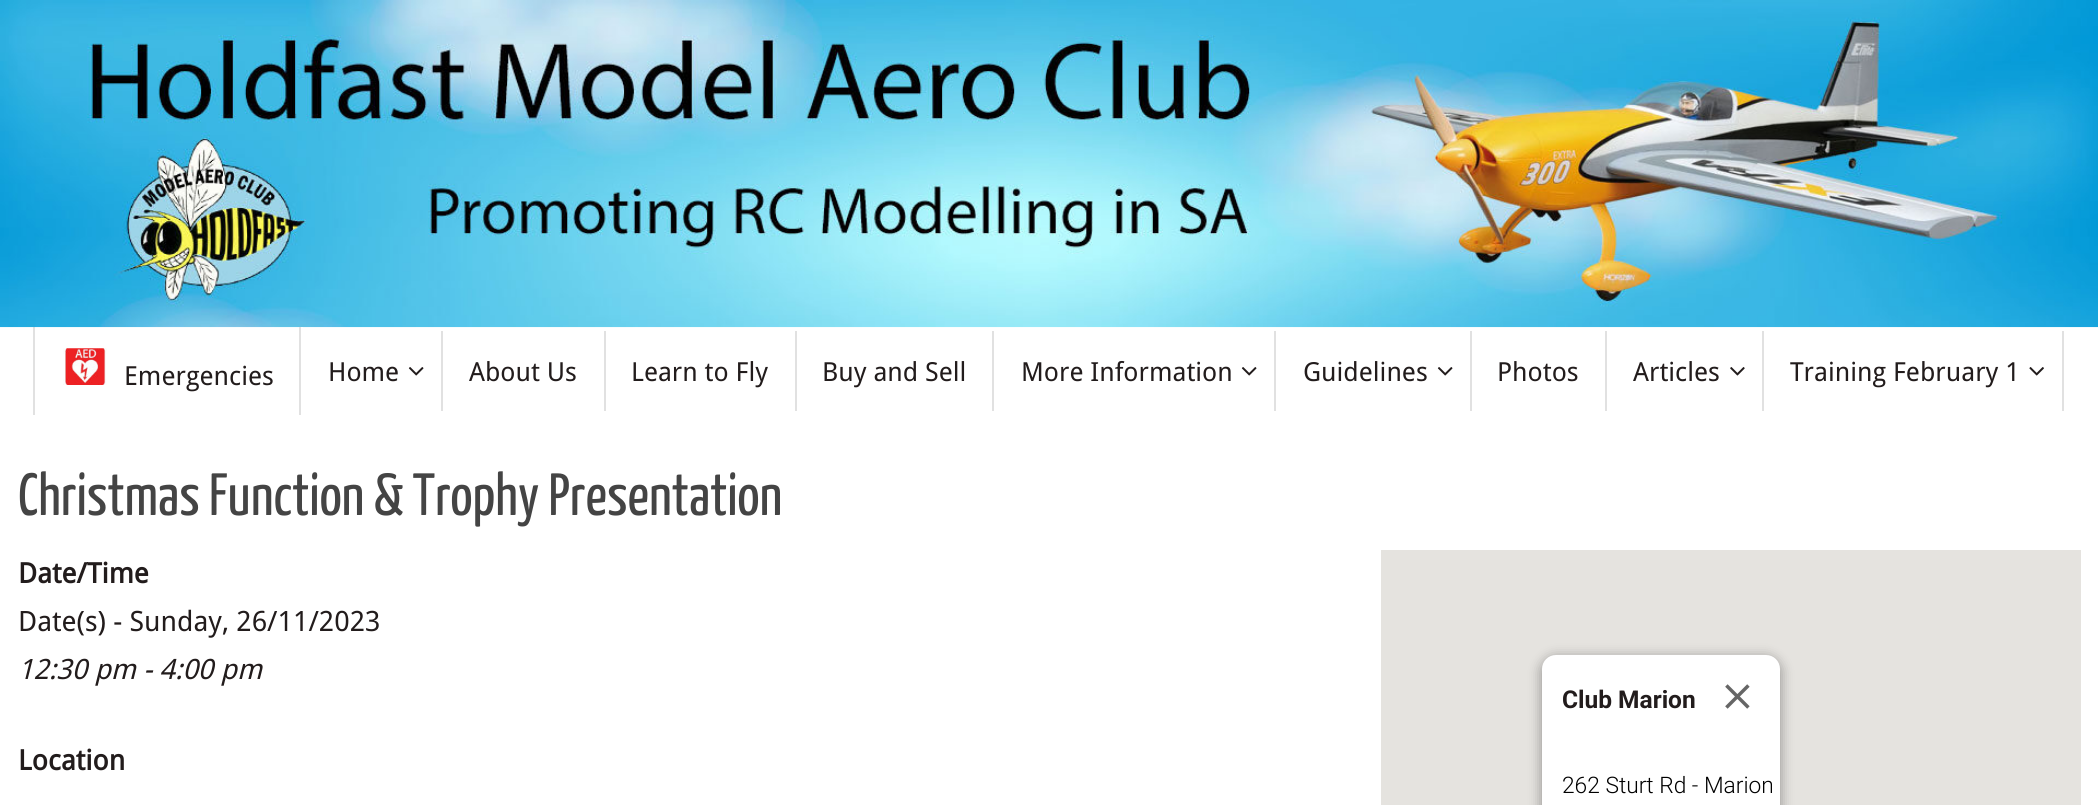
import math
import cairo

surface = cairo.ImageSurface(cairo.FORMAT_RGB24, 2098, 805)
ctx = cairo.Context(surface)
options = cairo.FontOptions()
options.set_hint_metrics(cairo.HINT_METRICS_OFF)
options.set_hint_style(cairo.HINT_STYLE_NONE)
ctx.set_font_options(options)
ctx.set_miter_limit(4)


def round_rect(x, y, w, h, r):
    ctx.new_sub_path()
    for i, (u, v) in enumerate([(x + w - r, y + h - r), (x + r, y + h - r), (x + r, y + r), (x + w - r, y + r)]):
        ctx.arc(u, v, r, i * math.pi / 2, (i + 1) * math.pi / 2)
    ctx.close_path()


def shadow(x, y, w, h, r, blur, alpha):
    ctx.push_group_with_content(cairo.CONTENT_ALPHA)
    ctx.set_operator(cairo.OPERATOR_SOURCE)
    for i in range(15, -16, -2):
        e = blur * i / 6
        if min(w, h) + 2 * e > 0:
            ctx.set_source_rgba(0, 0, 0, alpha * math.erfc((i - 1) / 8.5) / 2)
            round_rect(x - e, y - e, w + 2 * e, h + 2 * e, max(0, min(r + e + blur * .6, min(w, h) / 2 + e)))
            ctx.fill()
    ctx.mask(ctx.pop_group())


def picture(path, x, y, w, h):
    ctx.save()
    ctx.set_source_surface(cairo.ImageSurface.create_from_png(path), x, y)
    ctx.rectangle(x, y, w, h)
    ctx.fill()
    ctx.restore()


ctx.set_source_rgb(1, 1, 1)
ctx.paint()
ctx.set_source_rgb(0.882, 0.882, 0.882)
ctx.new_path()
ctx.move_to(33, 327)
ctx.line_to(33, 415)
ctx.line_to(2062, 415)
ctx.line_to(35, 415)
ctx.line_to(35, 327)
ctx.line_to(2062, 327)
ctx.close_path()
ctx.fill()
picture("img1.png", 0, 0, 2098, 328)
ctx.set_source_rgb(1, 1, 1)
ctx.new_path()
ctx.move_to(39, 327)
ctx.line_to(301, 327)
ctx.line_to(301, 415)
ctx.line_to(39, 415)
ctx.line_to(303, 415)
ctx.line_to(303, 327)
ctx.close_path()
ctx.fill()
ctx.set_source_rgb(0.882, 0.882, 0.882)
ctx.rectangle(299, 327, 2, 88)
ctx.fill()
picture("img2.png", 63, 348, 44, 37)
ctx.select_font_face("Droid Sans")
ctx.set_font_size(26.25)
ctx.set_source_rgb(0.133, 0.11, 0.11)
ctx.move_to(124, 385)
ctx.show_text("Emergencies")
ctx.set_source_rgb(0.882, 0.882, 0.882)
ctx.rectangle(441, 331, 2, 80)
ctx.fill()
ctx.set_source_rgb(0.133, 0.11, 0.11)
ctx.move_to(328, 381)
ctx.show_text("Home")
picture("img3.png", 408, 367, 16, 9)
ctx.set_source_rgb(0.882, 0.882, 0.882)
ctx.rectangle(604, 331, 2, 80)
ctx.fill()
ctx.set_source_rgb(0.133, 0.11, 0.11)
ctx.move_to(469, 381)
ctx.show_text("About Us")
ctx.set_source_rgb(0.882, 0.882, 0.882)
ctx.rectangle(795, 331, 2, 80)
ctx.fill()
ctx.set_source_rgb(0.133, 0.11, 0.11)
ctx.move_to(631, 381)
ctx.show_text("Learn to Fly")
ctx.set_source_rgb(0.882, 0.882, 0.882)
ctx.rectangle(992, 331, 2, 80)
ctx.fill()
ctx.set_source_rgb(0.133, 0.11, 0.11)
ctx.move_to(822, 381)
ctx.show_text("Buy and Sell")
ctx.set_source_rgb(0.882, 0.882, 0.882)
ctx.rectangle(1274, 331, 2, 80)
ctx.fill()
ctx.set_source_rgb(0.133, 0.11, 0.11)
ctx.move_to(1021, 381)
ctx.show_text("More Information")
picture("img3.png", 1241, 367, 16, 9)
ctx.set_source_rgb(0.882, 0.882, 0.882)
ctx.rectangle(1470, 331, 2, 80)
ctx.fill()
ctx.set_source_rgb(0.133, 0.11, 0.11)
ctx.move_to(1303, 381)
ctx.show_text("Guidelines")
picture("img3.png", 1437, 367, 16, 9)
ctx.set_source_rgb(0.882, 0.882, 0.882)
ctx.rectangle(1605, 331, 2, 80)
ctx.fill()
ctx.set_source_rgb(0.133, 0.11, 0.11)
ctx.move_to(1497, 381)
ctx.show_text("Photos")
ctx.set_source_rgb(0.882, 0.882, 0.882)
ctx.rectangle(1762, 331, 2, 80)
ctx.fill()
ctx.set_source_rgb(0.133, 0.11, 0.11)
ctx.move_to(1633, 381)
ctx.show_text("Articles")
picture("img4.png", 1730, 367, 15, 9)
ctx.set_source_rgb(0.882, 0.882, 0.882)
ctx.rectangle(2062, 331, 2, 80)
ctx.fill()
ctx.set_source_rgb(0.133, 0.11, 0.11)
ctx.move_to(1790, 381)
ctx.show_text("Training February 1")
picture("img5.png", 2029, 367, 15, 9)
ctx.select_font_face("Yanone Kaffeesatz")
ctx.set_font_size(59.5)
ctx.set_source_rgb(0.267, 0.267, 0.267)
ctx.move_to(18, 515)
ctx.show_text("Christmas Function & Trophy Presentation")
ctx.select_font_face("Droid Sans", cairo.FONT_SLANT_NORMAL, cairo.FONT_WEIGHT_BOLD)
ctx.set_font_size(28)
ctx.set_source_rgb(0.133, 0.11, 0.11)
ctx.move_to(18, 583)
ctx.show_text("Date/Time")
ctx.select_font_face("Droid Sans")
ctx.move_to(18, 631)
ctx.show_text("Date(s) - Sunday, 26/11/2023")
ctx.select_font_face("Droid Sans", cairo.FONT_SLANT_ITALIC)
ctx.move_to(18, 679)
ctx.show_text("12:30 pm - 4:00 pm")
ctx.select_font_face("Droid Sans", cairo.FONT_SLANT_NORMAL, cairo.FONT_WEIGHT_BOLD)
ctx.move_to(18, 770)
ctx.show_text("Location")
ctx.set_source_rgb(0.898, 0.89, 0.875)
ctx.rectangle(1381, 550, 700, 255)
ctx.fill()
ctx.set_source_rgb(0, 0, 0)
shadow(1540, 656, 242, 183, 16, 6, 0.3)
ctx.set_source_rgb(1, 1, 1)
round_rect(1542, 655, 238, 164, 14)
ctx.fill()
ctx.select_font_face("Roboto", cairo.FONT_SLANT_NORMAL, cairo.FONT_WEIGHT_BOLD)
ctx.set_font_size(24.5)
ctx.set_source_rgb(0.133, 0.11, 0.11)
ctx.move_to(1562, 708)
ctx.show_text("Club Marion")
picture("img6.png", 1725, 684, 25, 25)
ctx.select_font_face("Roboto Light")
ctx.set_font_size(22.75)
ctx.set_source_rgb(0, 0, 0)
ctx.move_to(1562, 793)
ctx.show_text("262 Sturt Rd - Marion")
surface.write_to_png("page.png")
